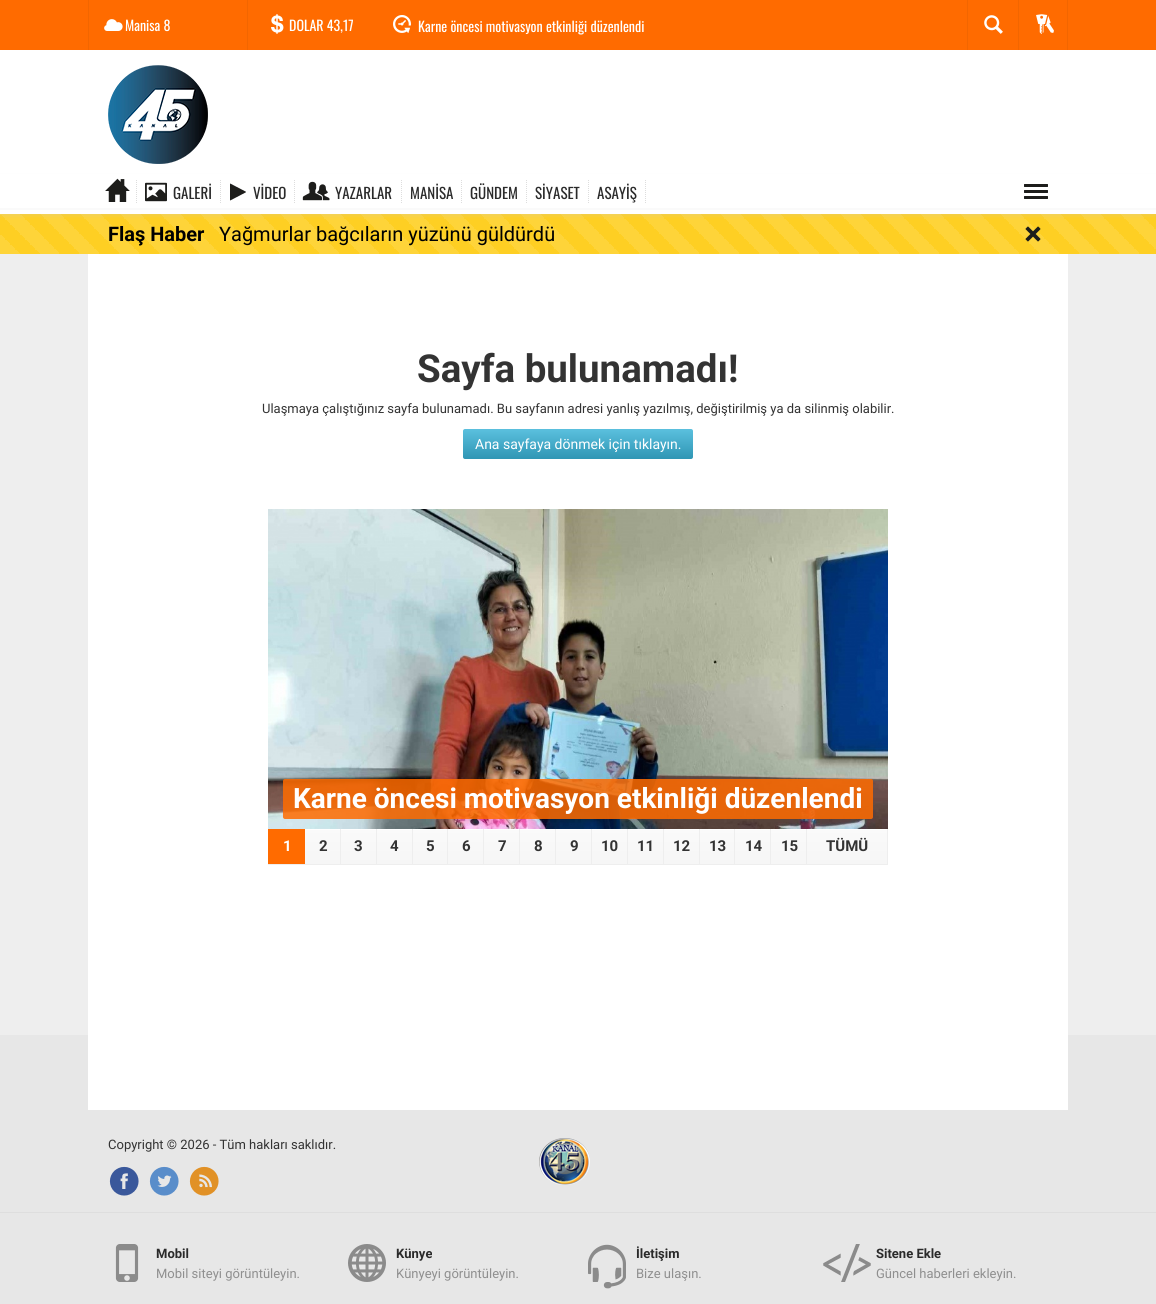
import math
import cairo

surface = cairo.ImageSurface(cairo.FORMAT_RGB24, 1156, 1304)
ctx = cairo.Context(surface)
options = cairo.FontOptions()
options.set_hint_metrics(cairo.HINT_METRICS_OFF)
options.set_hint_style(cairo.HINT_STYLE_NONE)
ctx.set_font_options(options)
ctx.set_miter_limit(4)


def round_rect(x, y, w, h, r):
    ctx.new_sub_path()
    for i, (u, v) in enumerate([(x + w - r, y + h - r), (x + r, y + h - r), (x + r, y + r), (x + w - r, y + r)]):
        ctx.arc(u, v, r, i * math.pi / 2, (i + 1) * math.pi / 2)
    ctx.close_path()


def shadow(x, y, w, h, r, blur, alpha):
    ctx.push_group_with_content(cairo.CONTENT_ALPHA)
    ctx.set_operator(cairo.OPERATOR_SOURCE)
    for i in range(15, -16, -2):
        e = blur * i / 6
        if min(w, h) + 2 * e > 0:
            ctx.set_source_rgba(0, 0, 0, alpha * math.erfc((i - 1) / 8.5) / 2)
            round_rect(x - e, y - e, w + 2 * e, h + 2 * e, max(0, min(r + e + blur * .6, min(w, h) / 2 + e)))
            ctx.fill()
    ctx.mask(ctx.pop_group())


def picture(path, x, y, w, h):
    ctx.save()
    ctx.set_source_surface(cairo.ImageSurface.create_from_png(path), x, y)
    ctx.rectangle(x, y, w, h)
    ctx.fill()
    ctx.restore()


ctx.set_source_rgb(0.933, 0.933, 0.933)
ctx.paint()
ctx.set_source_rgb(1, 1, 1)
ctx.rectangle(0, 50, 1156, 164)
ctx.fill()
ctx.set_source_rgb(1, 0.42, 0)
ctx.rectangle(0, 0, 1156, 50)
ctx.fill()
ctx.set_source_rgb(0.949, 0.4, 0)
ctx.rectangle(88, 0, 1, 50)
ctx.fill()
picture("img1.png", 104, 19, 19, 12)
ctx.select_font_face("Oswald")
ctx.set_font_size(14)
ctx.set_source_rgb(1, 1, 1)
ctx.move_to(125, 31)
ctx.show_text("Manisa 8")
ctx.set_source_rgb(0.949, 0.4, 0)
ctx.rectangle(247, 0, 1, 50)
ctx.fill()
picture("img2.png", 271, 14, 13, 20)
ctx.set_source_rgb(1, 1, 1)
ctx.move_to(289, 31)
ctx.show_text("DOLAR 43,17")
picture("img3.png", 393, 15, 18, 18)
ctx.move_to(418, 32)
ctx.show_text("Karne öncesi motivasyon etkinliği düzenlendi")
ctx.set_source_rgb(0.949, 0.4, 0)
ctx.rectangle(967, 0, 1, 50)
ctx.fill()
picture("img4.png", 984, 15, 19, 19)
ctx.rectangle(1067, 0, 1, 50)
ctx.fill()
ctx.rectangle(1018, 0, 1, 50)
ctx.fill()
picture("img5.png", 1036, 14, 18, 20)
picture("img6.png", 108, 65, 100, 99)
ctx.set_source_rgb(0.996, 0.812, 0.137)
ctx.rectangle(0, 214, 1156, 40)
ctx.fill()
picture("img12.png", 0, 214, 1156, 40)
ctx.save()
ctx.set_fill_rule(cairo.FILL_RULE_EVEN_ODD)
ctx.new_path()
ctx.move_to(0, 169)
ctx.line_to(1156, 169)
ctx.line_to(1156, 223)
ctx.line_to(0, 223)
ctx.close_path()
ctx.move_to(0, 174)
ctx.line_to(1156, 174)
ctx.line_to(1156, 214)
ctx.line_to(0, 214)
ctx.close_path()
ctx.clip()
ctx.set_source_rgb(0.8, 0.8, 0.8)
shadow(0, 176, 1156, 40, 0, 2, 0.25)
ctx.restore()
ctx.set_source_rgb(0.98, 0.98, 0.98)
ctx.rectangle(0, 208, 1156, 2)
ctx.fill()
ctx.new_path()
ctx.move_to(136.5, 180)
ctx.line_to(136.5, 204)
ctx.set_source_rgb(0.867, 0.867, 0.867)
ctx.set_line_width(1)
ctx.set_dash([1, 1])
ctx.stroke()
picture("img7.png", 105, 178, 25, 24)
ctx.new_path()
ctx.move_to(220.5, 180)
ctx.line_to(220.5, 204)
ctx.stroke()
picture("img8.png", 145, 182, 22, 20)
ctx.set_font_size(15)
ctx.set_source_rgb(0.165, 0.165, 0.165)
ctx.move_to(173, 199)
ctx.show_text("GALERİ")
ctx.new_path()
ctx.move_to(294.5, 180)
ctx.line_to(294.5, 204)
ctx.set_source_rgb(0.867, 0.867, 0.867)
ctx.stroke()
picture("img9.png", 230, 183, 16, 18)
ctx.set_source_rgb(0.165, 0.165, 0.165)
ctx.move_to(253, 199)
ctx.show_text("VİDEO")
ctx.new_path()
ctx.move_to(401.5, 180)
ctx.line_to(401.5, 204)
ctx.set_source_rgb(0.867, 0.867, 0.867)
ctx.stroke()
picture("img10.png", 302, 181, 28, 20)
ctx.set_source_rgb(0.165, 0.165, 0.165)
ctx.move_to(335, 199)
ctx.show_text("YAZARLAR")
ctx.new_path()
ctx.move_to(461.5, 180)
ctx.line_to(461.5, 204)
ctx.set_source_rgb(0.867, 0.867, 0.867)
ctx.stroke()
ctx.set_source_rgb(0.165, 0.165, 0.165)
ctx.move_to(410, 199)
ctx.show_text("MANİSA")
ctx.new_path()
ctx.move_to(526.5, 180)
ctx.line_to(526.5, 204)
ctx.set_source_rgb(0.867, 0.867, 0.867)
ctx.stroke()
ctx.set_source_rgb(0.165, 0.165, 0.165)
ctx.move_to(470, 199)
ctx.show_text("GÜNDEM")
ctx.new_path()
ctx.move_to(588.5, 180)
ctx.line_to(588.5, 204)
ctx.set_source_rgb(0.867, 0.867, 0.867)
ctx.stroke()
ctx.set_source_rgb(0.165, 0.165, 0.165)
ctx.move_to(535, 199)
ctx.show_text("SİYASET")
ctx.new_path()
ctx.move_to(645.5, 180)
ctx.line_to(645.5, 204)
ctx.set_source_rgb(0.867, 0.867, 0.867)
ctx.stroke()
ctx.set_source_rgb(0.165, 0.165, 0.165)
ctx.move_to(597, 199)
ctx.show_text("ASAYİŞ")
picture("img11.png", 1024, 184, 24, 15)
ctx.select_font_face("Roboto", cairo.FONT_SLANT_NORMAL, cairo.FONT_WEIGHT_BOLD)
ctx.set_font_size(20)
ctx.set_source_rgb(0, 0, 0)
ctx.move_to(108, 241)
ctx.show_text("Flaş Haber")
ctx.select_font_face("Roboto")
ctx.move_to(219, 241)
ctx.show_text("Yağmurlar bağcıların yüzünü güldürdü")
picture("img13.png", 1025, 226, 16, 16)
ctx.set_source_rgb(0.906, 0.906, 0.906)
ctx.rectangle(0, 1035, 1156, 269)
ctx.fill()
ctx.set_source_rgb(1, 1, 1)
ctx.rectangle(88, 254, 980, 856)
ctx.fill()
ctx.select_font_face("Roboto", cairo.FONT_SLANT_NORMAL, cairo.FONT_WEIGHT_BOLD)
ctx.set_font_size(38.5)
ctx.set_source_rgb(0.2, 0.2, 0.2)
ctx.move_to(417, 382)
ctx.show_text("Sayfa bulunamadı!")
ctx.select_font_face("Roboto")
ctx.set_font_size(13)
ctx.move_to(262, 413)
ctx.show_text("Ulaşmaya çalıştığınız sayfa bulunamadı. Bu sayfanın adresi yanlış yazılmış, değiştirilmiş ya da silinmiş olabilir.")
gradient = cairo.LinearGradient(578, 429, 578, 459)
gradient.add_color_stop_rgba(0, 0.357, 0.753, 0.871, 1)
gradient.add_color_stop_rgba(1, 0.184, 0.588, 0.706, 1)
ctx.set_source(gradient)
round_rect(463, 429, 230, 30, 2)
ctx.fill()
ctx.set_font_size(14)
ctx.set_source_rgb(1, 1, 1)
ctx.move_to(475, 449)
ctx.show_text("Ana sayfaya dönmek için tıklayın.")
picture("img14.png", 268, 509, 620, 320)
ctx.set_source_rgba(1, 0.42, 0, 0.85)
round_rect(283, 779, 590, 40, 2)
ctx.fill()
ctx.select_font_face("Roboto", cairo.FONT_SLANT_NORMAL, cairo.FONT_WEIGHT_BOLD)
ctx.set_font_size(28)
ctx.set_source_rgb(1, 1, 1)
ctx.move_to(293, 808)
ctx.show_text("Karne öncesi motivasyon etkinliği düzenlendi")
gradient = cairo.LinearGradient(578, 829, 578, 864)
gradient.add_color_stop_rgba(0, 0.98, 0.98, 0.98, 1)
gradient.add_color_stop_rgba(1, 0.965, 0.965, 0.965, 1)
ctx.set_source(gradient)
ctx.rectangle(305, 830, 582, 34)
ctx.fill()
ctx.set_source_rgb(0.933, 0.933, 0.933)
ctx.rectangle(887, 829, 1, 36)
ctx.fill()
ctx.rectangle(268, 864, 620, 1)
ctx.fill()
ctx.set_source_rgb(1, 0.42, 0)
ctx.rectangle(268, 829, 37, 35)
ctx.fill()
ctx.set_font_size(15)
ctx.set_source_rgb(1, 1, 1)
ctx.move_to(283, 851)
ctx.show_text("1")
ctx.set_source_rgb(0.2, 0.2, 0.2)
ctx.move_to(319, 851)
ctx.show_text("2")
ctx.set_source_rgb(0.933, 0.933, 0.933)
ctx.rectangle(340, 829, 1, 35)
ctx.fill()
ctx.set_source_rgb(0.2, 0.2, 0.2)
ctx.move_to(354, 851)
ctx.show_text("3")
ctx.set_source_rgb(0.933, 0.933, 0.933)
ctx.rectangle(376, 829, 1, 35)
ctx.fill()
ctx.set_source_rgb(0.2, 0.2, 0.2)
ctx.move_to(390, 851)
ctx.show_text("4")
ctx.set_source_rgb(0.933, 0.933, 0.933)
ctx.rectangle(412, 829, 1, 35)
ctx.fill()
ctx.set_source_rgb(0.2, 0.2, 0.2)
ctx.move_to(426, 851)
ctx.show_text("5")
ctx.set_source_rgb(0.933, 0.933, 0.933)
ctx.rectangle(447, 829, 1, 35)
ctx.fill()
ctx.set_source_rgb(0.2, 0.2, 0.2)
ctx.move_to(462, 851)
ctx.show_text("6")
ctx.set_source_rgb(0.933, 0.933, 0.933)
ctx.rectangle(483, 829, 1, 35)
ctx.fill()
ctx.set_source_rgb(0.2, 0.2, 0.2)
ctx.move_to(498, 851)
ctx.show_text("7")
ctx.set_source_rgb(0.933, 0.933, 0.933)
ctx.rectangle(519, 829, 1, 35)
ctx.fill()
ctx.set_source_rgb(0.2, 0.2, 0.2)
ctx.move_to(534, 851)
ctx.show_text("8")
ctx.set_source_rgb(0.933, 0.933, 0.933)
ctx.rectangle(555, 829, 1, 35)
ctx.fill()
ctx.set_source_rgb(0.2, 0.2, 0.2)
ctx.move_to(570, 851)
ctx.show_text("9")
ctx.set_source_rgb(0.933, 0.933, 0.933)
ctx.rectangle(591, 829, 1, 35)
ctx.fill()
ctx.set_source_rgb(0.2, 0.2, 0.2)
ctx.move_to(601, 851)
ctx.show_text("10")
ctx.set_source_rgb(0.933, 0.933, 0.933)
ctx.rectangle(627, 829, 1, 35)
ctx.fill()
ctx.set_source_rgb(0.2, 0.2, 0.2)
ctx.move_to(637, 851)
ctx.show_text("11")
ctx.set_source_rgb(0.933, 0.933, 0.933)
ctx.rectangle(663, 829, 1, 35)
ctx.fill()
ctx.set_source_rgb(0.2, 0.2, 0.2)
ctx.move_to(673, 851)
ctx.show_text("12")
ctx.set_source_rgb(0.933, 0.933, 0.933)
ctx.rectangle(699, 829, 1, 35)
ctx.fill()
ctx.set_source_rgb(0.2, 0.2, 0.2)
ctx.move_to(709, 851)
ctx.show_text("13")
ctx.set_source_rgb(0.933, 0.933, 0.933)
ctx.rectangle(734, 829, 1, 35)
ctx.fill()
ctx.set_source_rgb(0.2, 0.2, 0.2)
ctx.move_to(745, 851)
ctx.show_text("14")
ctx.set_source_rgb(0.933, 0.933, 0.933)
ctx.rectangle(770, 829, 1, 35)
ctx.fill()
ctx.set_source_rgb(0.2, 0.2, 0.2)
ctx.move_to(781, 851)
ctx.show_text("15")
ctx.set_source_rgb(0.933, 0.933, 0.933)
ctx.rectangle(806, 829, 1, 35)
ctx.fill()
ctx.set_source_rgb(0.2, 0.2, 0.2)
ctx.move_to(826, 851)
ctx.show_text("TÜMÜ")
ctx.select_font_face("Roboto")
ctx.set_font_size(13)
ctx.move_to(108, 1149)
ctx.show_text("Copyright © 2026 - Tüm hakları saklıdır.")
picture("img15.png", 109, 1166, 30, 30)
picture("img16.png", 149, 1166, 30, 30)
picture("img17.png", 189, 1166, 30, 30)
picture("img18.png", 539, 1138, 51, 47)
ctx.set_source_rgb(0.871, 0.871, 0.871)
ctx.rectangle(0, 1212, 1156, 1)
ctx.fill()
picture("img19.png", 115, 1244, 24, 38)
ctx.select_font_face("Roboto", cairo.FONT_SLANT_NORMAL, cairo.FONT_WEIGHT_BOLD)
ctx.set_source_rgb(0.165, 0.165, 0.165)
ctx.move_to(156, 1258)
ctx.show_text("Mobil")
ctx.select_font_face("Roboto")
ctx.set_source_rgb(0.561, 0.561, 0.561)
ctx.move_to(156, 1278)
ctx.show_text("Mobil siteyi görüntüleyin.")
picture("img20.png", 348, 1244, 38, 38)
ctx.select_font_face("Roboto", cairo.FONT_SLANT_NORMAL, cairo.FONT_WEIGHT_BOLD)
ctx.set_source_rgb(0.165, 0.165, 0.165)
ctx.move_to(396, 1258)
ctx.show_text("Künye")
ctx.select_font_face("Roboto")
ctx.set_source_rgb(0.561, 0.561, 0.561)
ctx.move_to(396, 1278)
ctx.show_text("Künyeyi görüntüleyin.")
picture("img21.png", 588, 1244, 38, 45)
ctx.select_font_face("Roboto", cairo.FONT_SLANT_NORMAL, cairo.FONT_WEIGHT_BOLD)
ctx.set_source_rgb(0.165, 0.165, 0.165)
ctx.move_to(636, 1258)
ctx.show_text("İletişim")
ctx.select_font_face("Roboto")
ctx.set_source_rgb(0.561, 0.561, 0.561)
ctx.move_to(636, 1278)
ctx.show_text("Bize ulaşın.")
picture("img22.png", 823, 1244, 48, 38)
ctx.select_font_face("Roboto", cairo.FONT_SLANT_NORMAL, cairo.FONT_WEIGHT_BOLD)
ctx.set_source_rgb(0.165, 0.165, 0.165)
ctx.move_to(876, 1258)
ctx.show_text("Sitene Ekle")
ctx.select_font_face("Roboto")
ctx.set_source_rgb(0.561, 0.561, 0.561)
ctx.move_to(876, 1278)
ctx.show_text("Güncel haberleri ekleyin.")
surface.write_to_png("page.png")
